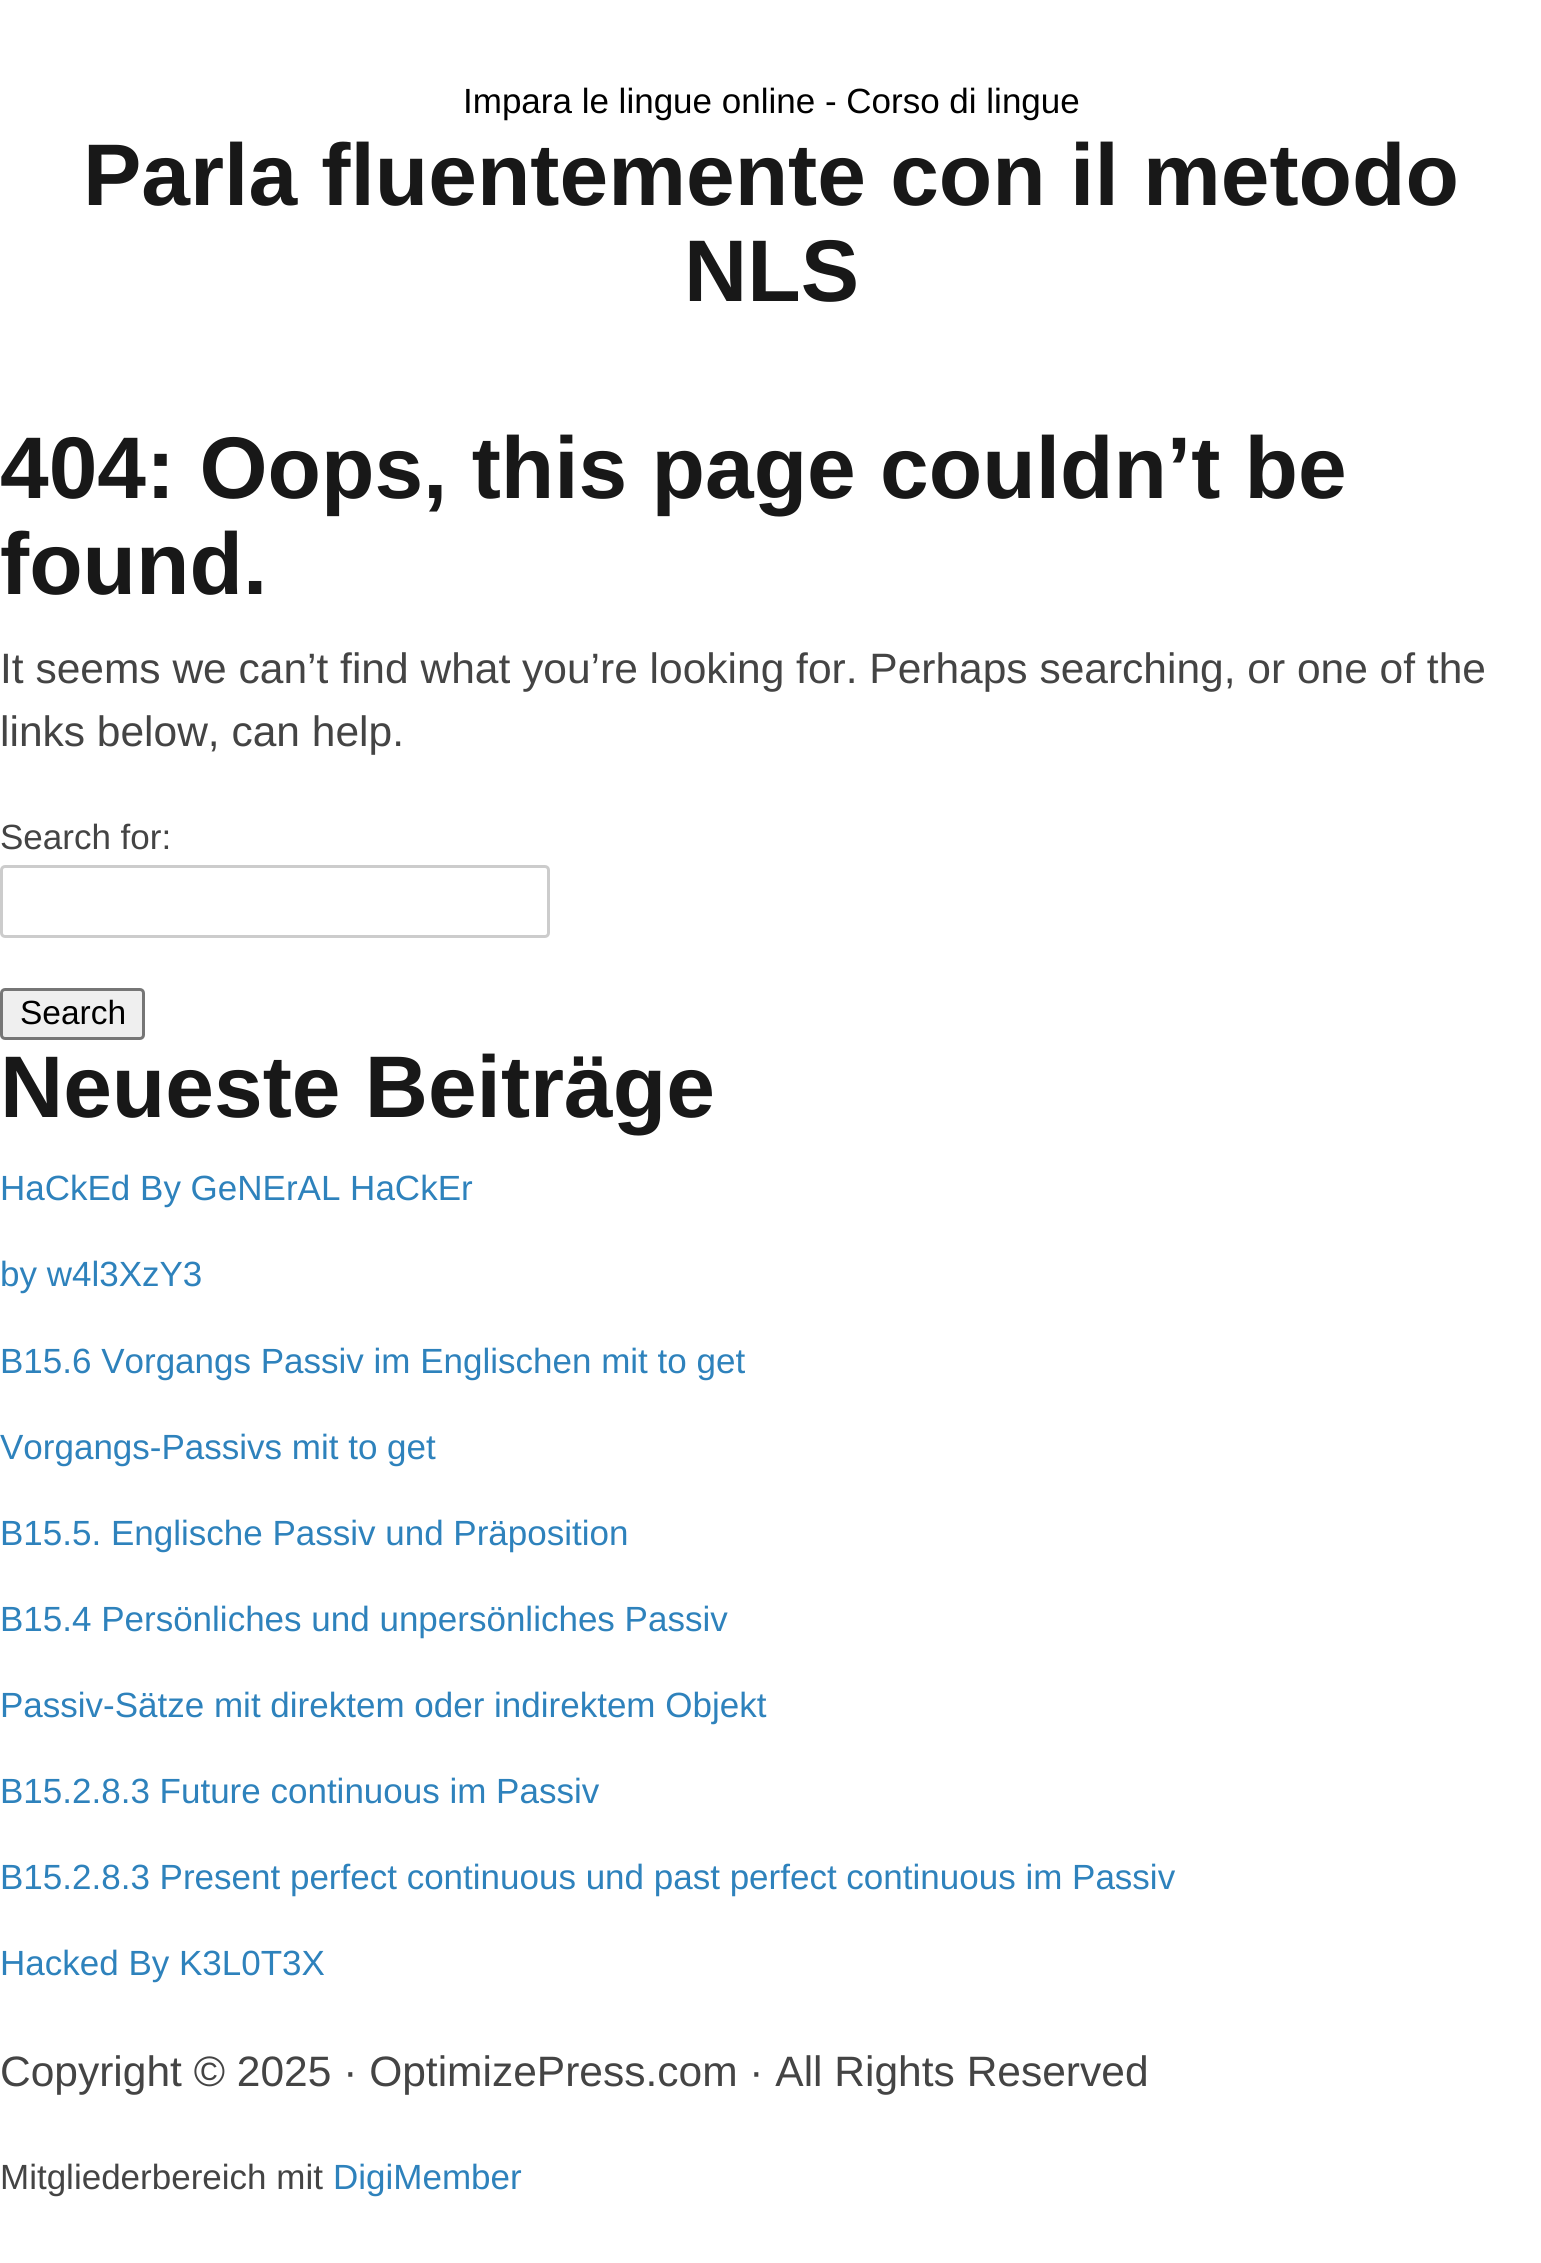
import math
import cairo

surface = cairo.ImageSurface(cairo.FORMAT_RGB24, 1541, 2263)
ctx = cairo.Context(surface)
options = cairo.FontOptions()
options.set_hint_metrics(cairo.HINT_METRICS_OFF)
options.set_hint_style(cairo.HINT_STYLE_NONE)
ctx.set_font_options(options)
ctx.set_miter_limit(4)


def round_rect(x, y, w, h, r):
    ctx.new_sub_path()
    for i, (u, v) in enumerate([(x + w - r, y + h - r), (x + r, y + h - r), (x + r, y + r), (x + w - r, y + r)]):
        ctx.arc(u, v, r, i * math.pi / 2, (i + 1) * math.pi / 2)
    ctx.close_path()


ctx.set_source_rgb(1, 1, 1)
ctx.paint()
ctx.select_font_face("Liberation Sans")
ctx.set_font_size(35)
ctx.set_source_rgb(0, 0, 0)
ctx.move_to(463, 113)
ctx.show_text("Impara le lingue online - Corso di lingue")
ctx.select_font_face("Liberation Sans", cairo.FONT_SLANT_NORMAL, cairo.FONT_WEIGHT_BOLD)
ctx.set_font_size(87.5)
ctx.set_source_rgb(0.094, 0.094, 0.094)
ctx.move_to(83, 205)
ctx.show_text("Parla fluentemente con il metodo")
ctx.move_to(684, 301)
ctx.show_text("NLS")
ctx.move_to(0, 498)
ctx.show_text("404: Oops, this page couldn’t be")
ctx.move_to(0, 594)
ctx.show_text("found.")
ctx.select_font_face("Liberation Sans")
ctx.set_font_size(42.5)
ctx.set_source_rgb(0.267, 0.267, 0.267)
ctx.move_to(0, 683)
ctx.show_text("It seems we can’t find what you’re looking for. Perhaps searching, or one of the")
ctx.move_to(0, 746)
ctx.show_text("links below, can help.")
ctx.set_font_size(35)
ctx.move_to(0, 849)
ctx.show_text("Search for:")
round_rect(1.5, 866.5, 547, 70, 3.5)
ctx.set_source_rgb(0.8, 0.8, 0.8)
ctx.set_line_width(3)
ctx.stroke()
ctx.set_source_rgb(0.937, 0.937, 0.937)
round_rect(1.5, 989.5, 142, 49, 3.5)
ctx.fill_preserve()
ctx.set_source_rgb(0.463, 0.463, 0.463)
ctx.stroke()
ctx.set_font_size(33.5)
ctx.set_source_rgb(0, 0, 0)
ctx.move_to(20, 1024)
ctx.show_text("Search")
ctx.select_font_face("Liberation Sans", cairo.FONT_SLANT_NORMAL, cairo.FONT_WEIGHT_BOLD)
ctx.set_font_size(87.5)
ctx.set_source_rgb(0.094, 0.094, 0.094)
ctx.move_to(0, 1117)
ctx.show_text("Neueste Beiträge")
ctx.select_font_face("Liberation Sans")
ctx.set_font_size(35)
ctx.set_source_rgb(0.18, 0.51, 0.737)
ctx.move_to(0, 1200)
ctx.show_text("HaCkEd By GeNErAL HaCkEr")
ctx.move_to(0, 1286)
ctx.show_text("by w4l3XzY3")
ctx.move_to(0, 1373)
ctx.show_text("B15.6 Vorgangs Passiv im Englischen mit to get")
ctx.move_to(0, 1459)
ctx.show_text("Vorgangs-Passivs mit to get")
ctx.move_to(0, 1545)
ctx.show_text("B15.5. Englische Passiv und Präposition")
ctx.move_to(0, 1631)
ctx.show_text("B15.4 Persönliches und unpersönliches Passiv")
ctx.move_to(0, 1717)
ctx.show_text("Passiv-Sätze mit direktem oder indirektem Objekt")
ctx.move_to(0, 1803)
ctx.show_text("B15.2.8.3 Future continuous im Passiv")
ctx.move_to(0, 1889)
ctx.show_text("B15.2.8.3 Present perfect continuous und past perfect continuous im Passiv")
ctx.move_to(0, 1975)
ctx.show_text("Hacked By K3L0T3X")
ctx.set_font_size(42.5)
ctx.set_source_rgb(0.267, 0.267, 0.267)
ctx.move_to(0, 2086)
ctx.show_text("Copyright © 2025 · OptimizePress.com · All Rights Reserved")
ctx.set_font_size(35)
ctx.move_to(0, 2189)
ctx.show_text("Mitgliederbereich mit")
ctx.set_source_rgb(0.18, 0.51, 0.737)
ctx.move_to(333, 2189)
ctx.show_text("DigiMember")
surface.write_to_png("page.png")
